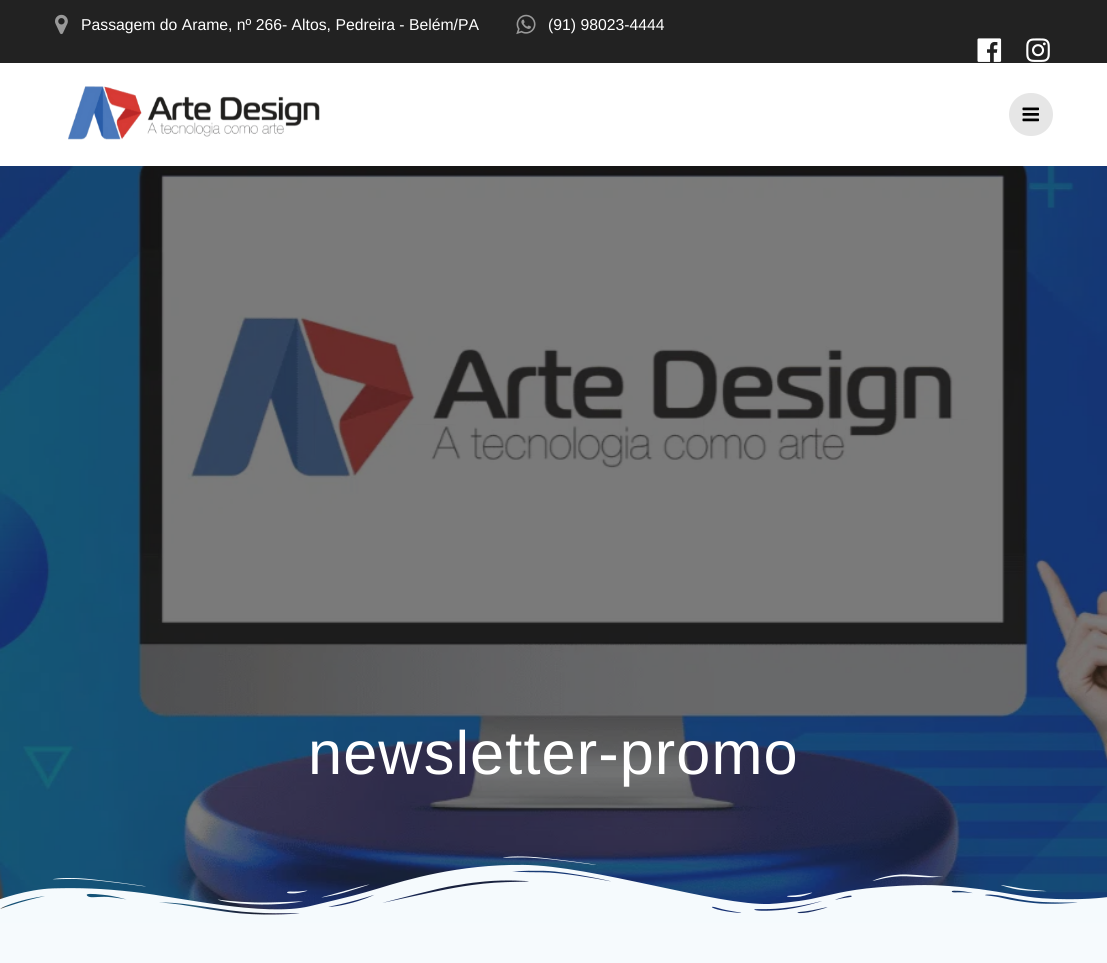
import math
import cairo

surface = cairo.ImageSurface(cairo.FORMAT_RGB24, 1107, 963)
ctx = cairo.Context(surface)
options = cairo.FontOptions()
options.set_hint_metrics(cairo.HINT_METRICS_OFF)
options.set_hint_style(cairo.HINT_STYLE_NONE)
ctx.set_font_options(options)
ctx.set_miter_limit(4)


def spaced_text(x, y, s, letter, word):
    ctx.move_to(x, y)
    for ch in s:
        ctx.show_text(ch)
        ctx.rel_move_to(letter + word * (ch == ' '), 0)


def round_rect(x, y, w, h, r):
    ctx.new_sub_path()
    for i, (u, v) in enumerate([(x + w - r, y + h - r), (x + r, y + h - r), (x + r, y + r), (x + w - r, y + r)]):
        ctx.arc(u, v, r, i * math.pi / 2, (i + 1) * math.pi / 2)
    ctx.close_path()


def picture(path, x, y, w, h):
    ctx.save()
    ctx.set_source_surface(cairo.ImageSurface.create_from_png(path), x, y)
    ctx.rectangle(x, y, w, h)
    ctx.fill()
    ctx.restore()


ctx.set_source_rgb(1, 1, 1)
ctx.paint()
ctx.set_source_rgb(0.133, 0.133, 0.133)
ctx.rectangle(0, 0, 1107, 63)
ctx.fill()
picture("img1.png", 55, 14, 13, 21)
ctx.select_font_face("Liberation Sans")
ctx.set_font_size(15.75)
ctx.set_source_rgb(1, 1, 1)
ctx.move_to(81, 30)
ctx.show_text("Passagem do Arame, nº 266- Altos, Pedreira - Belém/PA")
picture("img2.png", 516, 14, 20, 21)
ctx.move_to(548, 30)
ctx.show_text("(91) 98023-4444")
picture("img3.png", 977, 38, 25, 24)
picture("img4.png", 1026, 38, 24, 24)
picture("img5.png", 68, 86, 252, 54)
ctx.set_source_rgb(0.902, 0.902, 0.902)
round_rect(1009, 93, 44, 43, 21.5)
ctx.fill()
picture("img6.png", 1022, 107, 17, 15)
picture("img7.png", 0, 166, 1107, 749)
ctx.set_font_size(61.25)
ctx.set_source_rgb(1, 1, 1)
spaced_text(308, 774, "newsletter-promo", 1.1, 0)
picture("img8.png", 0, 856, 1107, 67)
ctx.set_source_rgb(0.961, 0.98, 0.992)
ctx.rectangle(0, 923, 1107, 40)
ctx.fill()
surface.write_to_png("page.png")
